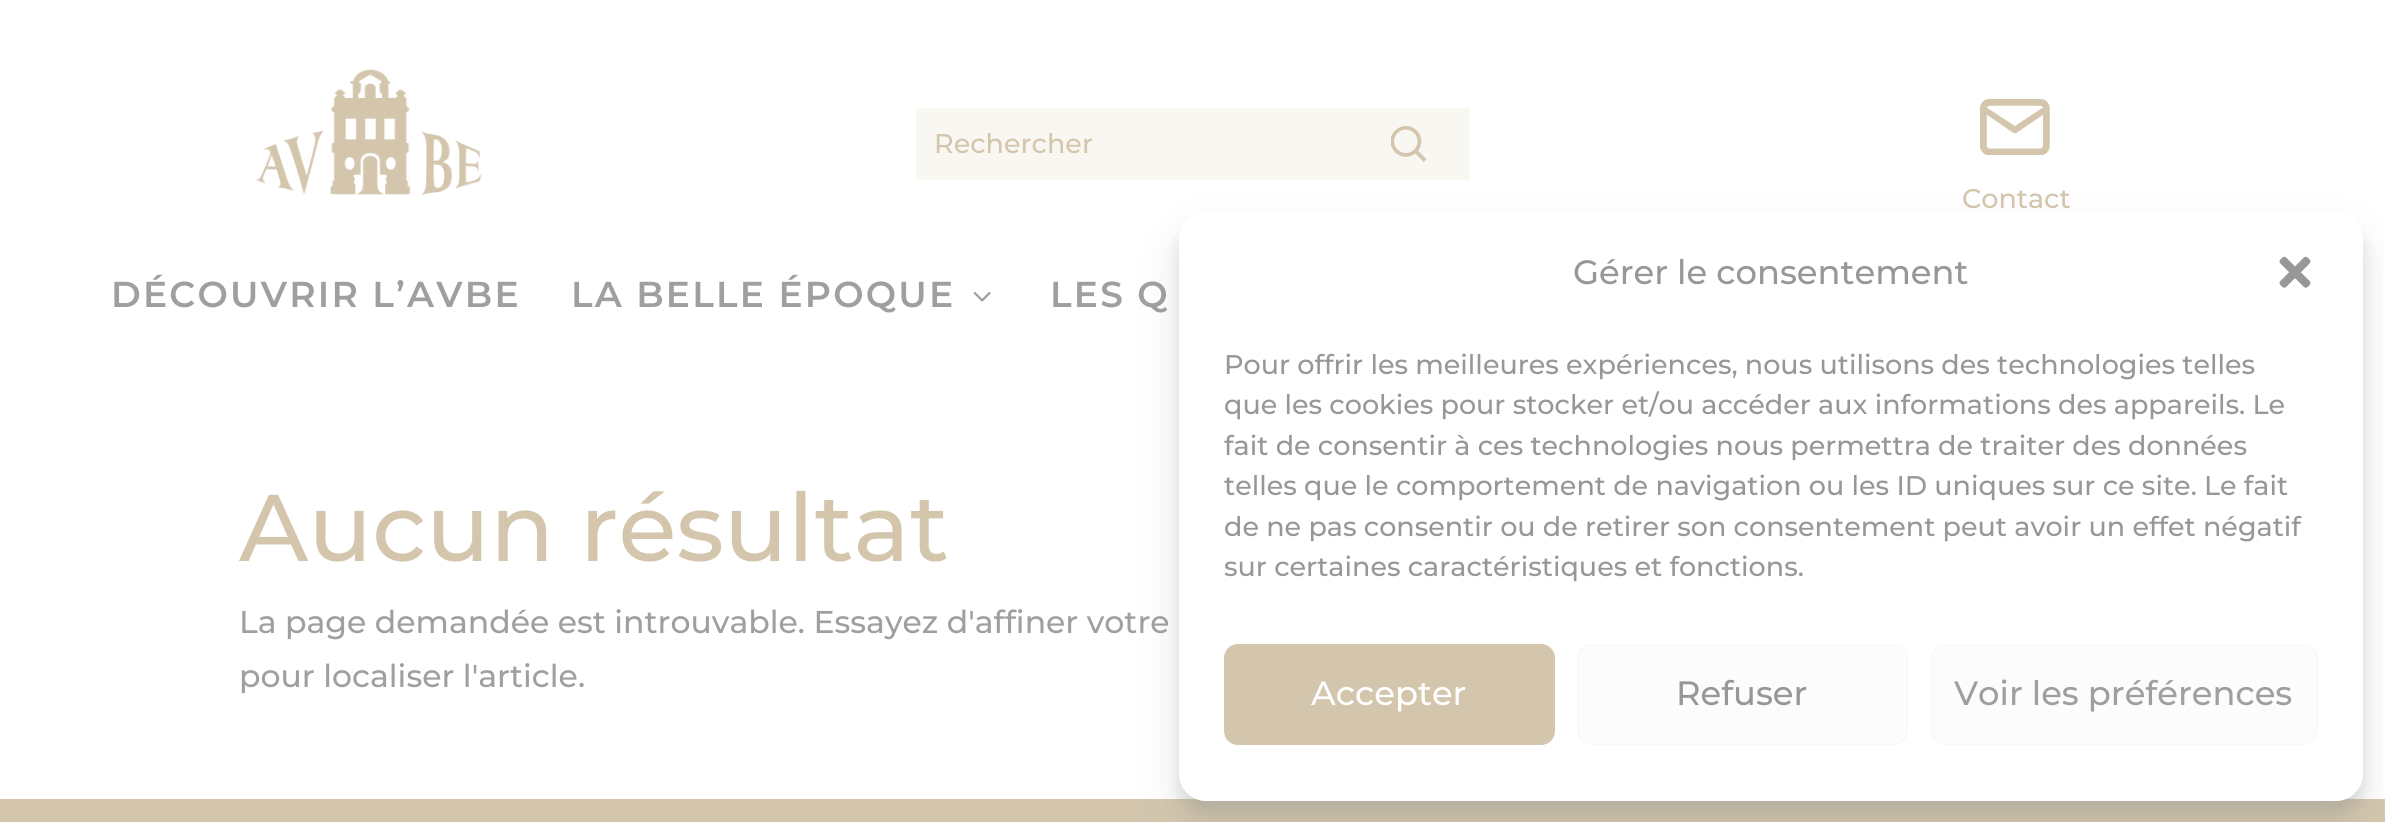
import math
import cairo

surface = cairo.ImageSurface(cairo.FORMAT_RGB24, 2385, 822)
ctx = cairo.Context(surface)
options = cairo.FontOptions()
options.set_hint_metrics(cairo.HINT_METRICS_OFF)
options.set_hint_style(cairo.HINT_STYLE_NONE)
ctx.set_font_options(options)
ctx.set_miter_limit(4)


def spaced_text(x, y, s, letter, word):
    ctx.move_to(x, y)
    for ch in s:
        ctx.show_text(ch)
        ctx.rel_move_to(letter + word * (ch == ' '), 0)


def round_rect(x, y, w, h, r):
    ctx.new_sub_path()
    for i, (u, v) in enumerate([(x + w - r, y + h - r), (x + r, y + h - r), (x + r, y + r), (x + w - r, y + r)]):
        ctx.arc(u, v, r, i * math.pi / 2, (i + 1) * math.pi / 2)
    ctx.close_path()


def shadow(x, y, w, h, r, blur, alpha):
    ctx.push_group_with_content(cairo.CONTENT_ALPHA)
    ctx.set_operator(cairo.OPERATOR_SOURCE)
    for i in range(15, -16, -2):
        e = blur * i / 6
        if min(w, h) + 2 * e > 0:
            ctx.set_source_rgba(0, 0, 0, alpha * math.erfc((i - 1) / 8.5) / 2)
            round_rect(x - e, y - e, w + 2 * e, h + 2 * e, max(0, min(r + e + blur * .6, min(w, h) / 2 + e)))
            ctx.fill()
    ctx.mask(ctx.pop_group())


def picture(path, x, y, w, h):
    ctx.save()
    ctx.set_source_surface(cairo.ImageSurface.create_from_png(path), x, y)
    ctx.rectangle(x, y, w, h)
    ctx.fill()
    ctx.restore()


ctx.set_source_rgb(1, 1, 1)
ctx.paint()
picture("img1.png", 256, 69, 226, 126)
ctx.set_source_rgb(0.973, 0.965, 0.945)
ctx.rectangle(916, 108, 553, 72)
ctx.fill()
ctx.select_font_face("Montserrat Medium")
ctx.set_font_size(27)
ctx.set_source_rgb(0.827, 0.776, 0.678)
ctx.move_to(934, 153)
ctx.show_text("Rechercher")
picture("img2.png", 1391, 126, 36, 36)
picture("img3.png", 1980, 99, 70, 56)
ctx.move_to(1962, 208)
ctx.show_text("Contact")
ctx.select_font_face("Montserrat SemiBold")
ctx.set_font_size(36)
ctx.set_source_rgb(0.624, 0.624, 0.624)
spaced_text(111, 307, "DÉCOUVRIR L’AVBE", 2.25, 0)
spaced_text(571, 307, "LA BELLE ÉPOQUE", 2.25, 0)
picture("img4.png", 973, 292, 18, 10)
spaced_text(1050, 307, "LES Q", 2.25, 0)
ctx.select_font_face("Montserrat Medium")
ctx.set_font_size(94.5)
ctx.set_source_rgb(0.827, 0.776, 0.678)
ctx.move_to(239, 561)
ctx.show_text("Aucun résultat")
ctx.set_font_size(31.5)
ctx.set_source_rgb(0.624, 0.624, 0.624)
ctx.move_to(239, 633)
ctx.show_text("La page demandée est introuvable. Essayez d'affiner votre")
ctx.move_to(239, 687)
ctx.show_text("pour localiser l'article.")
ctx.set_source_rgb(0.827, 0.776, 0.678)
ctx.rectangle(0, 799, 2385, 23)
ctx.fill()
ctx.set_source_rgb(0.529, 0.529, 0.529)
shadow(1179, 225, 1184, 590, 27, 7, 0.23)
shadow(1179, 234, 1184, 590, 27, 22.5, 0.19)
ctx.set_source_rgb(1, 1, 1)
round_rect(1179, 212, 1184, 589, 27)
ctx.fill()
ctx.set_font_size(33.75)
ctx.set_source_rgb(0.592, 0.592, 0.592)
ctx.move_to(1573, 284)
ctx.show_text("Gérer le consentement")
picture("img5.png", 2279, 256, 32, 32)
ctx.set_font_size(27)
ctx.move_to(1224, 374)
ctx.show_text("Pour offrir les meilleures expériences, nous utilisons des technologies telles")
ctx.move_to(1224, 414)
ctx.show_text("que les cookies pour stocker et/ou accéder aux informations des appareils. Le")
ctx.move_to(1224, 455)
ctx.show_text("fait de consentir à ces technologies nous permettra de traiter des données")
ctx.move_to(1224, 495)
ctx.show_text("telles que le comportement de navigation ou les ID uniques sur ce site. Le fait")
ctx.move_to(1224, 536)
ctx.show_text("de ne pas consentir ou de retirer son consentement peut avoir un effet négatif")
ctx.move_to(1224, 576)
ctx.show_text("sur certaines caractéristiques et fonctions.")
ctx.set_source_rgb(0.827, 0.776, 0.678)
round_rect(1225, 645, 329, 99, 13)
ctx.fill_preserve()
ctx.stroke()
ctx.set_font_size(33.75)
ctx.set_source_rgb(1, 1, 1)
ctx.move_to(1311, 705)
ctx.show_text("Accepter")
ctx.set_source_rgb(0.988, 0.988, 0.988)
round_rect(1578, 645, 329, 99, 13)
ctx.fill_preserve()
ctx.set_source_rgb(0.976, 0.976, 0.976)
ctx.stroke()
ctx.set_source_rgb(0.592, 0.592, 0.592)
ctx.move_to(1676, 705)
ctx.show_text("Refuser")
ctx.set_source_rgb(0.988, 0.988, 0.988)
round_rect(1932, 645, 385, 99, 13)
ctx.fill_preserve()
ctx.set_source_rgb(0.976, 0.976, 0.976)
ctx.stroke()
ctx.set_source_rgb(0.624, 0.624, 0.624)
ctx.move_to(1954, 705)
ctx.show_text("Voir les préférences")
surface.write_to_png("page.png")
